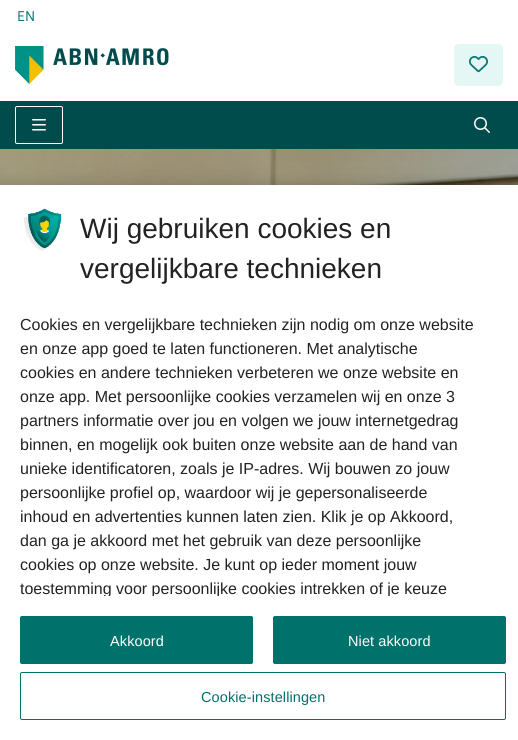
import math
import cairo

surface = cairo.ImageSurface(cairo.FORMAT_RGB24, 518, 740)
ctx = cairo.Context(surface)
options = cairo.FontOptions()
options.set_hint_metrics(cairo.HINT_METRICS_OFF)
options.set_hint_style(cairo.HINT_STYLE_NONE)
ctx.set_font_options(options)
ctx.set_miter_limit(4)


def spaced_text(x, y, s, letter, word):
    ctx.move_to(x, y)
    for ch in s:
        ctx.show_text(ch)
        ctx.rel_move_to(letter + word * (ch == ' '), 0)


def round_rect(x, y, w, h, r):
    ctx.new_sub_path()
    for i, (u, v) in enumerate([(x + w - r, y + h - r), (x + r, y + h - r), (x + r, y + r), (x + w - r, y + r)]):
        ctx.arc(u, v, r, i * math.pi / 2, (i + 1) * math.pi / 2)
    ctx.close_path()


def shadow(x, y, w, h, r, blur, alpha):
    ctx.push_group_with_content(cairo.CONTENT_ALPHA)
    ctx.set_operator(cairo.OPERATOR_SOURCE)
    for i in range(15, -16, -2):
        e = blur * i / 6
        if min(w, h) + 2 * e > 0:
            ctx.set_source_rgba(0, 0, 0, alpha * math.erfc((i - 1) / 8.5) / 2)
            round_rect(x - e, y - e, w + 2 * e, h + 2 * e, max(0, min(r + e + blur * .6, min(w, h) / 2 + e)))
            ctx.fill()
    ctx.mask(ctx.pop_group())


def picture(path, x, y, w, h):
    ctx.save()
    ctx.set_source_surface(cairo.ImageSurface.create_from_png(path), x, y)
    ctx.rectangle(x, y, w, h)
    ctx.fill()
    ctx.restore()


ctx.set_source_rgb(1, 1, 1)
ctx.paint()
ctx.select_font_face("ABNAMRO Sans")
ctx.set_font_size(14)
ctx.set_source_rgb(0.043, 0.467, 0.455)
ctx.move_to(17, 21)
ctx.show_text("EN")
picture("img1.png", 15, 46, 154, 38)
ctx.set_source_rgb(0.898, 0.965, 0.957)
round_rect(454, 44, 49, 42, 5)
ctx.fill()
picture("img2.png", 469, 56, 19, 17)
ctx.set_source_rgb(0, 0.298, 0.298)
ctx.rectangle(0, 101, 518, 48)
ctx.fill()
round_rect(15.5, 106.5, 47, 37, 1.5)
ctx.set_source_rgb(1, 1, 1)
ctx.set_line_width(1)
ctx.stroke()
picture("img3.png", 32, 119, 14, 12)
picture("img4.png", 474, 117, 16, 16)
picture("img5.png", 0, 149, 518, 36)
ctx.set_source_rgb(0, 0, 0)
shadow(0, 185, 518, 555, 0, 9, 0.2)
ctx.set_source_rgb(1, 1, 1)
ctx.rectangle(0, 185, 518, 411)
ctx.fill()
picture("img6.png", 23, 208, 39, 43)
ctx.select_font_face("Liberation Sans")
ctx.set_font_size(28)
ctx.set_source_rgb(0.133, 0.133, 0.133)
ctx.move_to(80, 238)
ctx.show_text("Wij gebruiken cookies en")
ctx.move_to(80, 278)
ctx.show_text("vergelijkbare technieken")
ctx.set_font_size(16)
ctx.move_to(20, 330)
ctx.show_text("Cookies en vergelijkbare technieken zijn nodig om onze website")
ctx.move_to(20, 354)
ctx.show_text("en onze app goed te laten functioneren. Met analytische")
ctx.move_to(20, 378)
ctx.show_text("cookies en andere technieken verbeteren we onze website en")
ctx.move_to(20, 402)
ctx.show_text("onze app. Met persoonlijke cookies verzamelen wij en onze 3")
ctx.move_to(20, 426)
ctx.show_text("partners informatie over jou en volgen we jouw internetgedrag")
ctx.move_to(20, 450)
ctx.show_text("binnen, en mogelijk ook buiten onze website aan de hand van")
ctx.move_to(20, 474)
ctx.show_text("unieke identificatoren, zoals je IP-adres. Wij bouwen zo jouw")
ctx.move_to(20, 498)
ctx.show_text("persoonlijke profiel op, waardoor wij je gepersonaliseerde")
ctx.move_to(20, 522)
ctx.show_text("inhoud en advertenties kunnen laten zien. Klik je op Akkoord,")
ctx.move_to(20, 546)
ctx.show_text("dan ga je akkoord met het gebruik van deze persoonlijke")
ctx.move_to(20, 570)
ctx.show_text("cookies op onze website. Je kunt op ieder moment jouw")
ctx.move_to(20, 594)
ctx.show_text("toestemming voor persoonlijke cookies intrekken of je keuze")
ctx.set_source_rgb(1, 1, 1)
ctx.rectangle(0, 596, 518, 144)
ctx.fill()
ctx.set_source_rgb(0, 0.443, 0.42)
round_rect(20.5, 616.5, 232, 47, 1.5)
ctx.fill_preserve()
ctx.stroke()
ctx.set_font_size(14.5)
ctx.set_source_rgb(1, 1, 1)
spaced_text(110, 646, "Akkoord", 0.1, 0)
ctx.set_source_rgb(0, 0.443, 0.42)
round_rect(273.5, 616.5, 232, 47, 1.5)
ctx.fill_preserve()
ctx.stroke()
ctx.set_source_rgb(1, 1, 1)
spaced_text(348, 646, "Niet akkoord", 0.1, 0)
round_rect(20.5, 672.5, 485, 47, 1.5)
ctx.set_source_rgb(0, 0.443, 0.42)
ctx.stroke()
spaced_text(201, 702, "Cookie-instellingen", 0.1, 0)
surface.write_to_png("page.png")
